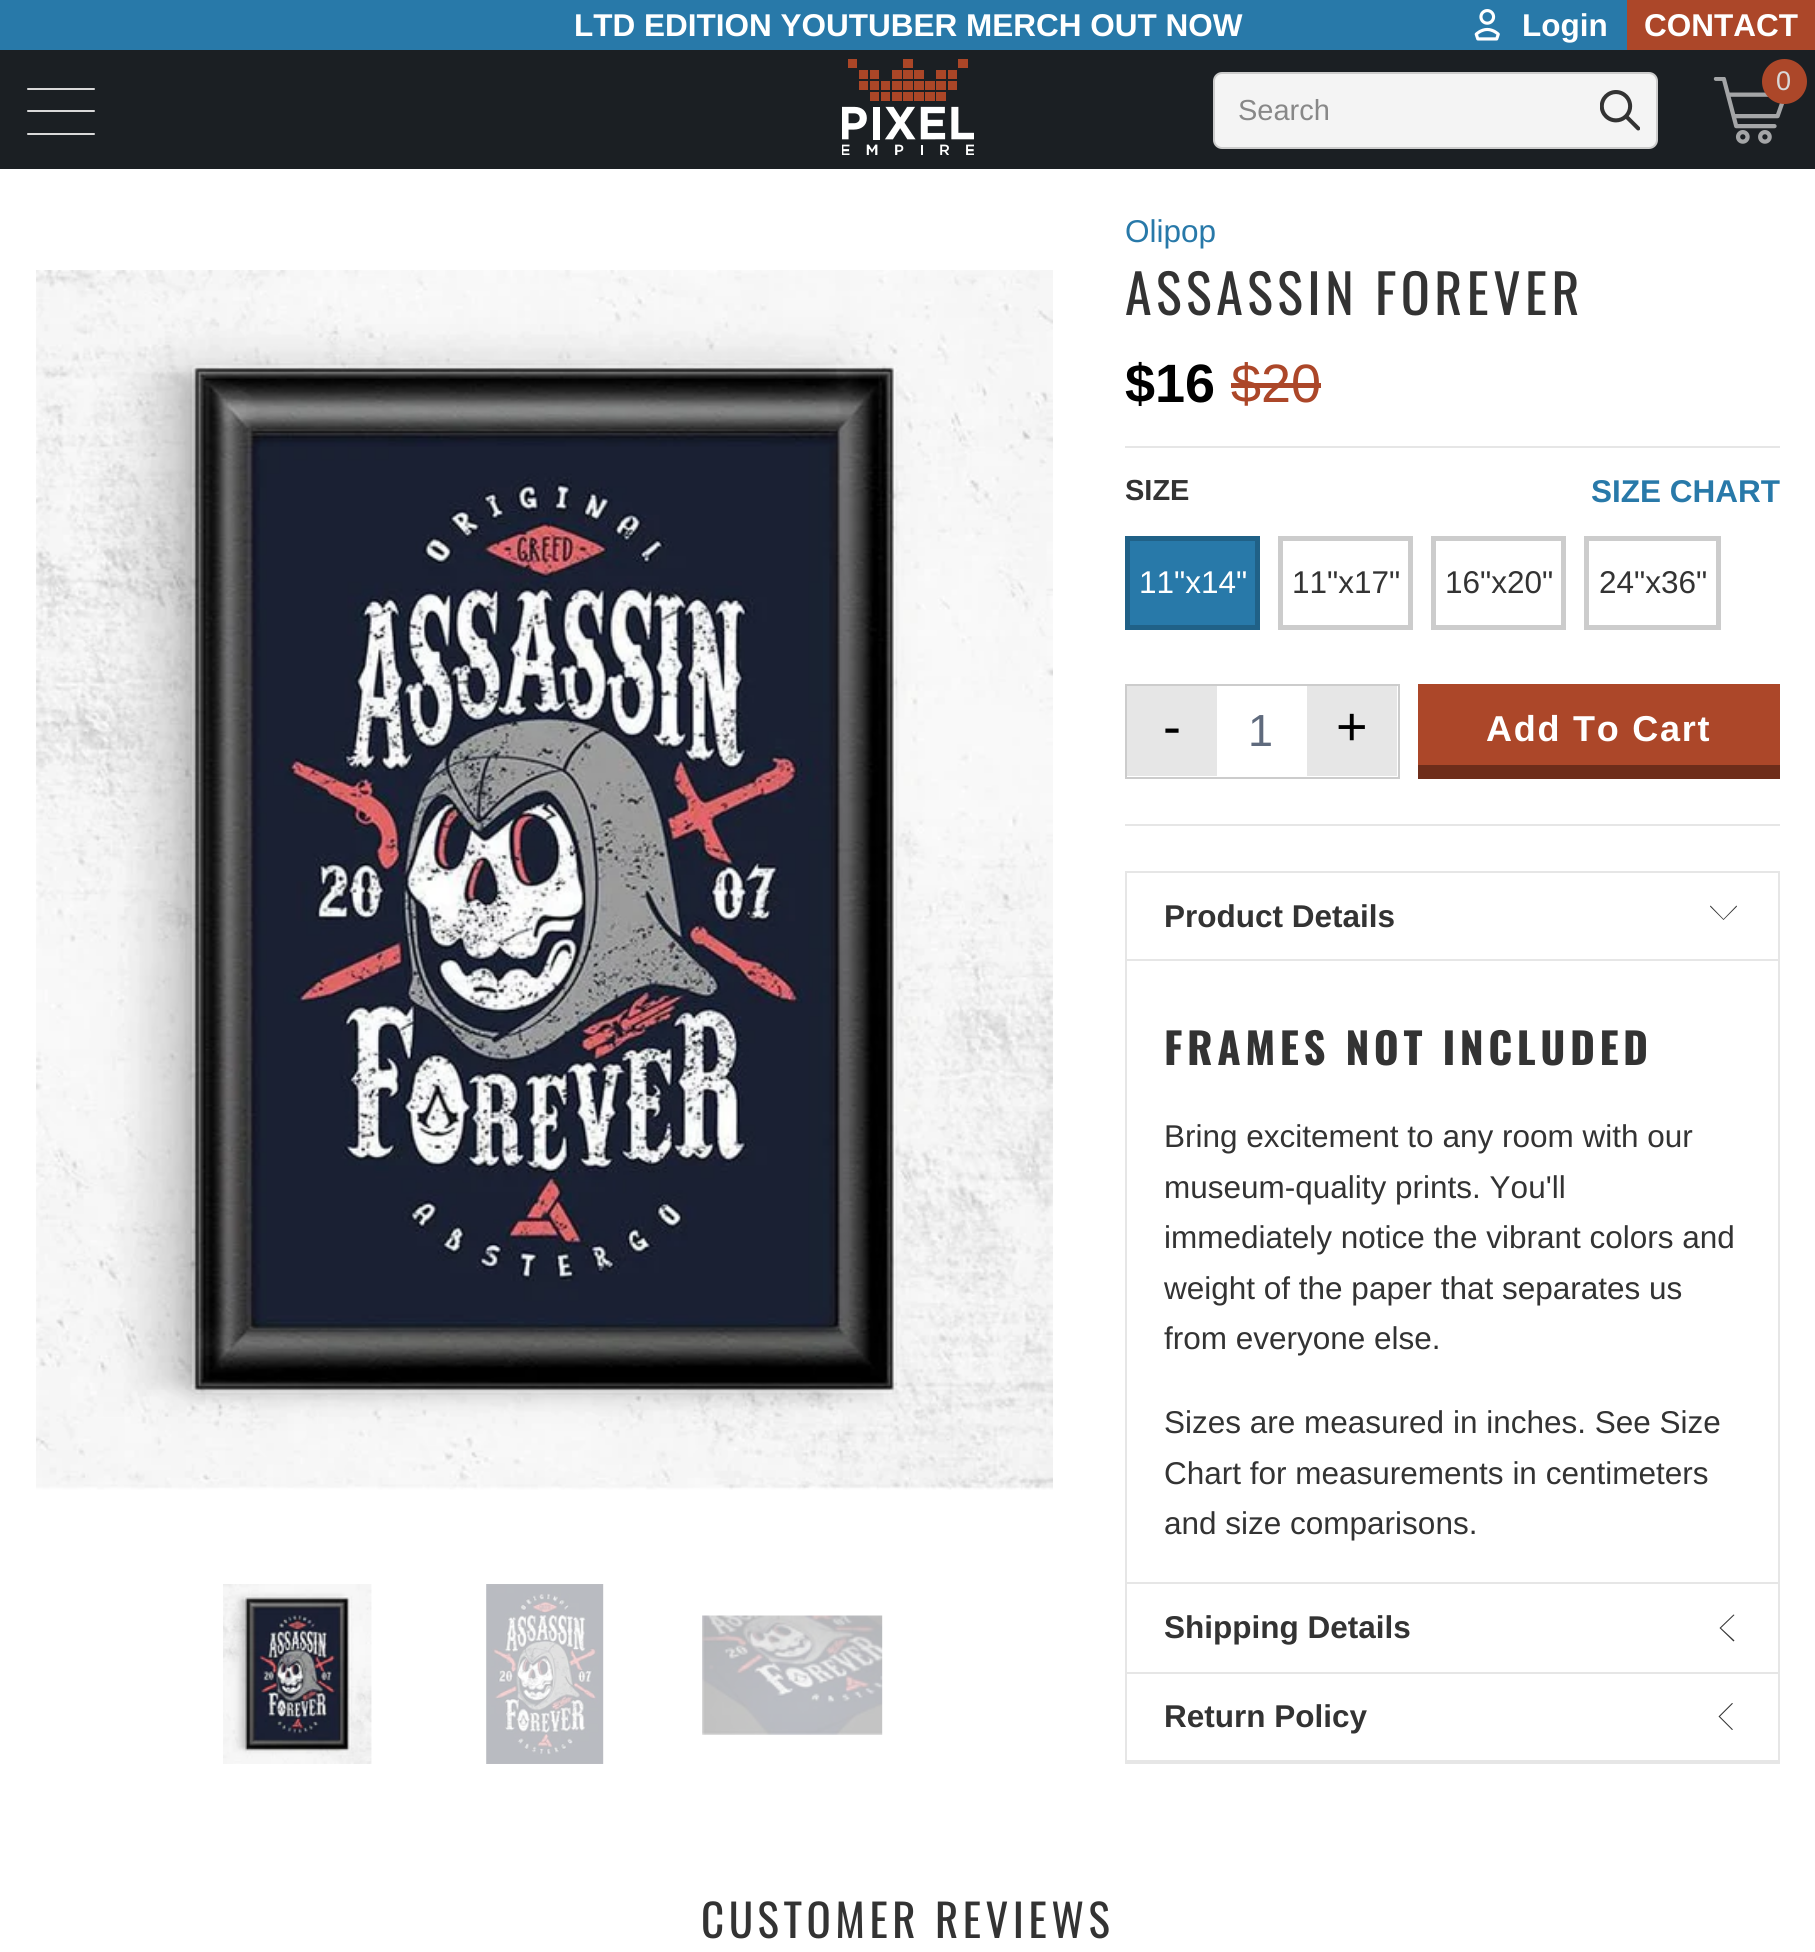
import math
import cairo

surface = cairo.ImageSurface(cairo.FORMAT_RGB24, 1815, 1952)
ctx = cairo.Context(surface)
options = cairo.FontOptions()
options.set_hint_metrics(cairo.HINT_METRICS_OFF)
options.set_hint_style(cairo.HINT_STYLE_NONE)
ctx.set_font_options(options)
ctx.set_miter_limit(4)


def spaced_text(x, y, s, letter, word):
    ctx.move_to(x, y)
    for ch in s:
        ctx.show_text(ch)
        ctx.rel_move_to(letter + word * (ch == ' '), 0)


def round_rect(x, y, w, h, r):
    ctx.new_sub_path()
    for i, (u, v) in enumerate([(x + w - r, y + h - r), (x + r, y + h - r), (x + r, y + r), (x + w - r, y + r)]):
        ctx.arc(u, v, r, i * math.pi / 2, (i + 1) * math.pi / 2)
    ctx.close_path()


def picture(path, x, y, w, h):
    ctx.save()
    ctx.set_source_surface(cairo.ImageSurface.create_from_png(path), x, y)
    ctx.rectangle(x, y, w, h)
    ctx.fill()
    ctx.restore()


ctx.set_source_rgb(1, 1, 1)
ctx.paint()
ctx.set_source_rgb(0.157, 0.475, 0.663)
ctx.rectangle(0, 0, 1627, 50)
ctx.fill()
ctx.select_font_face("Liberation Sans", cairo.FONT_SLANT_NORMAL, cairo.FONT_WEIGHT_BOLD)
ctx.set_font_size(31.5)
ctx.set_source_rgb(1, 1, 1)
ctx.move_to(574, 36)
ctx.show_text("LTD EDITION YOUTUBER MERCH OUT NOW")
picture("img1.png", 1474, 9, 26, 32)
ctx.move_to(1522, 36)
ctx.show_text("Login")
ctx.set_source_rgb(0.675, 0.278, 0.161)
ctx.rectangle(1627, 0, 188, 50)
ctx.fill()
ctx.set_source_rgb(1, 1, 1)
ctx.move_to(1644, 36)
ctx.show_text("CONTACT")
ctx.set_source_rgb(0.106, 0.122, 0.137)
ctx.rectangle(0, 50, 1815, 119)
ctx.fill()
ctx.set_source_rgb(0.851, 0.851, 0.851)
round_rect(27, 88, 68, 2, 1)
ctx.fill()
round_rect(27, 110, 68, 2, 1)
ctx.fill()
round_rect(27, 133, 68, 2, 1)
ctx.fill()
picture("img2.png", 842, 59, 132, 96)
picture("img3.png", 1713, 77, 71, 67)
ctx.set_source_rgb(0.675, 0.278, 0.161)
ctx.arc(1784.5, 81.5, 22.5, 0, 2 * math.pi)
ctx.fill()
ctx.select_font_face("Liberation Sans")
ctx.set_font_size(27)
ctx.set_source_rgb(0.851, 0.851, 0.851)
spaced_text(1776, 90, "0", 2, 0)
ctx.set_source_rgb(0.957, 0.957, 0.957)
round_rect(1214, 73, 443, 75, 8)
ctx.fill_preserve()
ctx.set_source_rgb(0.8, 0.8, 0.8)
ctx.stroke()
ctx.set_font_size(29)
ctx.set_source_rgb(0.533, 0.533, 0.533)
ctx.move_to(1238, 120)
ctx.show_text("Search")
picture("img4.png", 1600, 90, 40, 41)
picture("img5.png", 36, 270, 1017, 1220)
picture("img6.png", 223, 1584, 149, 180)
picture("img7.png", 486, 1584, 118, 180)
picture("img8.png", 702, 1615, 181, 120)
ctx.set_font_size(31.5)
ctx.set_source_rgb(0.157, 0.475, 0.663)
ctx.move_to(1125, 242)
ctx.show_text("Olipop")
ctx.select_font_face("Oswald")
ctx.set_font_size(54)
ctx.set_source_rgb(0.2, 0.2, 0.2)
spaced_text(1125, 315, "ASSASSIN FOREVER", 4.5, 0)
ctx.select_font_face("Liberation Sans", cairo.FONT_SLANT_NORMAL, cairo.FONT_WEIGHT_BOLD)
ctx.set_source_rgb(0, 0, 0)
ctx.move_to(1125, 402)
ctx.show_text("$16")
ctx.select_font_face("Liberation Sans")
ctx.set_source_rgb(0.675, 0.278, 0.161)
ctx.move_to(1231, 402)
ctx.show_text("$20")
ctx.rectangle(1231, 383, 90, 5)
ctx.fill()
ctx.set_source_rgb(0.902, 0.902, 0.902)
ctx.rectangle(1125, 446, 655, 2)
ctx.fill()
ctx.rectangle(1125, 824, 655, 2)
ctx.fill()
ctx.select_font_face("Liberation Sans", cairo.FONT_SLANT_NORMAL, cairo.FONT_WEIGHT_BOLD)
ctx.set_font_size(29)
ctx.set_source_rgb(0.2, 0.2, 0.2)
ctx.move_to(1125, 500)
ctx.show_text("SIZE")
ctx.set_source_rgb(0.157, 0.475, 0.663)
ctx.rectangle(1127.5, 538.5, 130, 89)
ctx.fill_preserve()
ctx.set_source_rgb(0.125, 0.38, 0.529)
ctx.set_line_width(5)
ctx.stroke()
ctx.select_font_face("Liberation Sans")
ctx.set_font_size(31.5)
ctx.set_source_rgb(1, 1, 1)
ctx.move_to(1139, 593)
ctx.show_text("11\"x14\"")
ctx.rectangle(1280.5, 538.5, 130, 89)
ctx.set_source_rgb(0.8, 0.8, 0.8)
ctx.stroke()
ctx.set_source_rgb(0.2, 0.2, 0.2)
ctx.move_to(1292, 593)
ctx.show_text("11\"x17\"")
ctx.rectangle(1433.5, 538.5, 130, 89)
ctx.set_source_rgb(0.8, 0.8, 0.8)
ctx.stroke()
ctx.set_source_rgb(0.2, 0.2, 0.2)
ctx.move_to(1445, 593)
ctx.show_text("16\"x20\"")
ctx.rectangle(1586.5, 538.5, 132, 89)
ctx.set_source_rgb(0.8, 0.8, 0.8)
ctx.stroke()
ctx.set_source_rgb(0.2, 0.2, 0.2)
ctx.move_to(1599, 593)
ctx.show_text("24\"x36\"")
ctx.select_font_face("Liberation Sans", cairo.FONT_SLANT_NORMAL, cairo.FONT_WEIGHT_BOLD)
ctx.set_source_rgb(0.157, 0.475, 0.663)
ctx.move_to(1591, 502)
ctx.show_text("SIZE CHART")
ctx.rectangle(1126, 685, 273, 93)
ctx.set_source_rgb(0.8, 0.8, 0.8)
ctx.set_line_width(2)
ctx.stroke()
ctx.set_source_rgb(0.902, 0.902, 0.902)
ctx.rectangle(1127, 686, 90, 90)
ctx.fill()
ctx.select_font_face("Liberation Sans")
ctx.set_font_size(54)
ctx.set_source_rgb(0, 0, 0)
spaced_text(1163, 745, "-", 2, 0)
ctx.set_font_size(45)
ctx.set_source_rgb(0.373, 0.416, 0.49)
ctx.move_to(1248, 746)
ctx.show_text("1")
ctx.set_source_rgb(0.902, 0.902, 0.902)
ctx.rectangle(1307, 686, 90, 90)
ctx.fill()
ctx.set_font_size(54)
ctx.set_source_rgb(0, 0, 0)
spaced_text(1336, 745, "+", 2, 0)
ctx.set_source_rgb(0.675, 0.278, 0.161)
ctx.rectangle(1418, 684, 362, 81)
ctx.fill()
ctx.select_font_face("Liberation Sans", cairo.FONT_SLANT_NORMAL, cairo.FONT_WEIGHT_BOLD)
ctx.set_font_size(36)
ctx.set_source_rgb(1, 1, 1)
spaced_text(1486, 741, "Add To Cart", 1.75, 0)
ctx.set_source_rgb(0.431, 0.176, 0.102)
ctx.rectangle(1418, 765, 362, 14)
ctx.fill()
ctx.rectangle(1126, 872, 653, 891)
ctx.set_source_rgb(0.902, 0.902, 0.902)
ctx.stroke()
ctx.rectangle(1127, 959, 651, 2)
ctx.fill()
ctx.set_font_size(31.5)
ctx.set_source_rgb(0.2, 0.2, 0.2)
ctx.move_to(1164, 927)
ctx.show_text("Product Details")
ctx.new_path()
ctx.move_to(1723.5, 920)
ctx.line_to(1710, 906.5)
ctx.line_to(1710.5, 905.5)
ctx.line_to(1723.5, 919)
ctx.line_to(1736.5, 905.5)
ctx.line_to(1737, 906.5)
ctx.close_path()
ctx.fill()
ctx.set_source_rgb(0.902, 0.902, 0.902)
ctx.rectangle(1127, 1582, 651, 2)
ctx.fill()
ctx.select_font_face("Oswald", cairo.FONT_SLANT_NORMAL, cairo.FONT_WEIGHT_BOLD)
ctx.set_font_size(42.75)
ctx.set_source_rgb(0.2, 0.2, 0.2)
spaced_text(1164, 1065, "FRAMES NOT INCLUDED", 4.5, 0)
ctx.select_font_face("Liberation Sans")
ctx.set_font_size(31.5)
ctx.move_to(1164, 1147)
ctx.show_text("Bring excitement to any room with our")
ctx.move_to(1164, 1198)
ctx.show_text("museum-quality prints. You'll")
ctx.move_to(1164, 1248)
ctx.show_text("immediately notice the vibrant colors and")
ctx.move_to(1164, 1299)
ctx.show_text("weight of the paper that separates us")
ctx.move_to(1164, 1349)
ctx.show_text("from everyone else.")
ctx.move_to(1164, 1433)
ctx.show_text("Sizes are measured in inches. See Size")
ctx.move_to(1164, 1484)
ctx.show_text("Chart for measurements in centimeters")
ctx.move_to(1164, 1534)
ctx.show_text("and size comparisons.")
ctx.set_source_rgb(0.902, 0.902, 0.902)
ctx.rectangle(1127, 1672, 651, 2)
ctx.fill()
ctx.select_font_face("Liberation Sans", cairo.FONT_SLANT_NORMAL, cairo.FONT_WEIGHT_BOLD)
ctx.set_source_rgb(0.2, 0.2, 0.2)
ctx.move_to(1164, 1638)
ctx.show_text("Shipping Details")
ctx.new_path()
ctx.move_to(1719.5, 1628)
ctx.line_to(1733.5, 1614.5)
ctx.line_to(1734.5, 1615)
ctx.line_to(1721, 1628)
ctx.line_to(1734.5, 1640.5)
ctx.line_to(1733.5, 1641.5)
ctx.close_path()
ctx.fill()
ctx.set_source_rgb(0.902, 0.902, 0.902)
ctx.rectangle(1127, 1760, 651, 2)
ctx.fill()
ctx.set_source_rgb(0.2, 0.2, 0.2)
ctx.move_to(1164, 1727)
ctx.show_text("Return Policy")
ctx.new_path()
ctx.move_to(1718.5, 1716.5)
ctx.line_to(1732, 1703)
ctx.line_to(1733, 1703.5)
ctx.line_to(1720, 1716.5)
ctx.line_to(1733, 1729.5)
ctx.line_to(1732, 1730)
ctx.close_path()
ctx.fill()
ctx.select_font_face("Oswald")
ctx.set_font_size(45)
spaced_text(701, 1938, "CUSTOMER REVIEWS", 4.5, 0)
surface.write_to_png("page.png")
